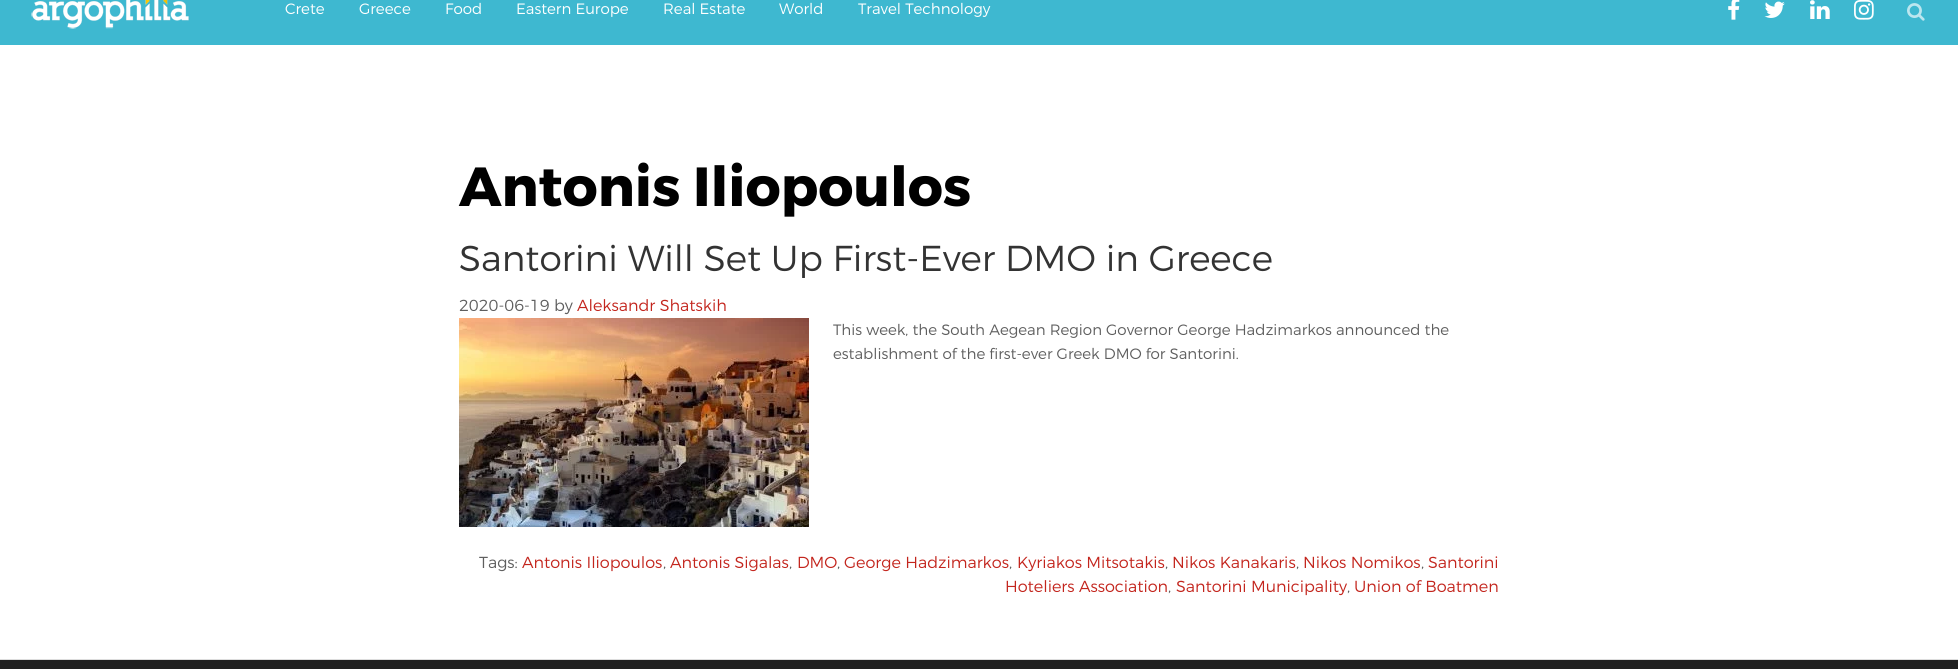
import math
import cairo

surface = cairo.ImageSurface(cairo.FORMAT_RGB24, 1958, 669)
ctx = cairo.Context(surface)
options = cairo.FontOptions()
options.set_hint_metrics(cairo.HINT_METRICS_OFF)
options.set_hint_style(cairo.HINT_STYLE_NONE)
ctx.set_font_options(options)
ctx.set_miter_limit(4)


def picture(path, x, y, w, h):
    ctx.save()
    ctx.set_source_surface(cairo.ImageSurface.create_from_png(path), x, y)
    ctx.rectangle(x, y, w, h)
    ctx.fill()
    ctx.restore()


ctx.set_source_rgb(1, 1, 1)
ctx.paint()
ctx.set_source_rgb(0.243, 0.722, 0.816)
ctx.rectangle(0, 0, 1958, 45)
ctx.fill()
picture("img1.png", 31, 0, 158, 29)
ctx.select_font_face("Montserrat Light")
ctx.set_font_size(15)
ctx.set_source_rgb(1, 1, 1)
ctx.move_to(285, 14)
ctx.show_text("Crete")
ctx.move_to(359, 14)
ctx.show_text("Greece")
ctx.move_to(445, 14)
ctx.show_text("Food")
ctx.move_to(516, 14)
ctx.show_text("Eastern Europe")
ctx.move_to(663, 14)
ctx.show_text("Real Estate")
ctx.move_to(779, 14)
ctx.show_text("World")
ctx.move_to(858, 14)
ctx.show_text("Travel Technology")
picture("img2.png", 1728, 0, 12, 20)
picture("img3.png", 1764, 1, 21, 17)
picture("img4.png", 1810, 0, 20, 19)
picture("img5.png", 1854, 0, 20, 20)
picture("img6.png", 1907, 3, 18, 18)
ctx.select_font_face("Montserrat", cairo.FONT_SLANT_NORMAL, cairo.FONT_WEIGHT_BOLD)
ctx.set_font_size(55)
ctx.set_source_rgb(0, 0, 0)
ctx.move_to(459, 206)
ctx.show_text("Antonis Iliopoulos")
ctx.select_font_face("Montserrat Light")
ctx.set_font_size(36)
ctx.set_source_rgb(0.2, 0.2, 0.2)
ctx.move_to(459, 271)
ctx.show_text("Santorini Will Set Up First-Ever DMO in Greece")
ctx.set_font_size(16)
ctx.set_source_rgb(0.369, 0.369, 0.369)
ctx.move_to(459, 311)
ctx.show_text("2020-06-19 by")
ctx.set_source_rgb(0.765, 0.145, 0.114)
ctx.move_to(577, 311)
ctx.show_text("Aleksandr Shatskih")
picture("img7.png", 459, 318, 350, 209)
ctx.set_font_size(15)
ctx.set_source_rgb(0.369, 0.369, 0.369)
ctx.move_to(833, 335)
ctx.show_text("This week, the South Aegean Region Governor George Hadzimarkos announced the")
ctx.move_to(833, 359)
ctx.show_text("establishment of the first-ever Greek DMO for Santorini.")
ctx.set_font_size(16)
ctx.move_to(479, 568)
ctx.show_text("Tags:")
ctx.set_source_rgb(0.765, 0.145, 0.114)
ctx.move_to(522, 568)
ctx.show_text("Antonis Iliopoulos")
ctx.set_source_rgb(0.369, 0.369, 0.369)
ctx.move_to(663, 568)
ctx.show_text(",")
ctx.set_source_rgb(0.765, 0.145, 0.114)
ctx.move_to(670, 568)
ctx.show_text("Antonis Sigalas")
ctx.set_source_rgb(0.369, 0.369, 0.369)
ctx.move_to(789, 568)
ctx.show_text(",")
ctx.set_source_rgb(0.765, 0.145, 0.114)
ctx.move_to(797, 568)
ctx.show_text("DMO")
ctx.set_source_rgb(0.369, 0.369, 0.369)
ctx.move_to(837, 568)
ctx.show_text(",")
ctx.set_source_rgb(0.765, 0.145, 0.114)
ctx.move_to(844, 568)
ctx.show_text("George Hadzimarkos")
ctx.set_source_rgb(0.369, 0.369, 0.369)
ctx.move_to(1009, 568)
ctx.show_text(",")
ctx.set_source_rgb(0.765, 0.145, 0.114)
ctx.move_to(1017, 568)
ctx.show_text("Kyriakos Mitsotakis")
ctx.set_source_rgb(0.369, 0.369, 0.369)
ctx.move_to(1165, 568)
ctx.show_text(",")
ctx.set_source_rgb(0.765, 0.145, 0.114)
ctx.move_to(1172, 568)
ctx.show_text("Nikos Kanakaris")
ctx.set_source_rgb(0.369, 0.369, 0.369)
ctx.move_to(1296, 568)
ctx.show_text(",")
ctx.set_source_rgb(0.765, 0.145, 0.114)
ctx.move_to(1303, 568)
ctx.show_text("Nikos Nomikos")
ctx.set_source_rgb(0.369, 0.369, 0.369)
ctx.move_to(1421, 568)
ctx.show_text(",")
ctx.set_source_rgb(0.765, 0.145, 0.114)
ctx.move_to(1428, 568)
ctx.show_text("Santorini")
ctx.move_to(1005, 592)
ctx.show_text("Hoteliers Association")
ctx.set_source_rgb(0.369, 0.369, 0.369)
ctx.move_to(1168, 592)
ctx.show_text(",")
ctx.set_source_rgb(0.765, 0.145, 0.114)
ctx.move_to(1176, 592)
ctx.show_text("Santorini Municipality")
ctx.set_source_rgb(0.369, 0.369, 0.369)
ctx.move_to(1347, 592)
ctx.show_text(",")
ctx.set_source_rgb(0.765, 0.145, 0.114)
ctx.move_to(1354, 592)
ctx.show_text("Union of Boatmen")
ctx.set_source_rgb(0.125, 0.125, 0.125)
ctx.rectangle(0, 660, 1958, 9)
ctx.fill()
ctx.set_source_rgb(0.867, 0.867, 0.867)
ctx.rectangle(0, 659, 1958, 1)
ctx.fill()
surface.write_to_png("page.png")
